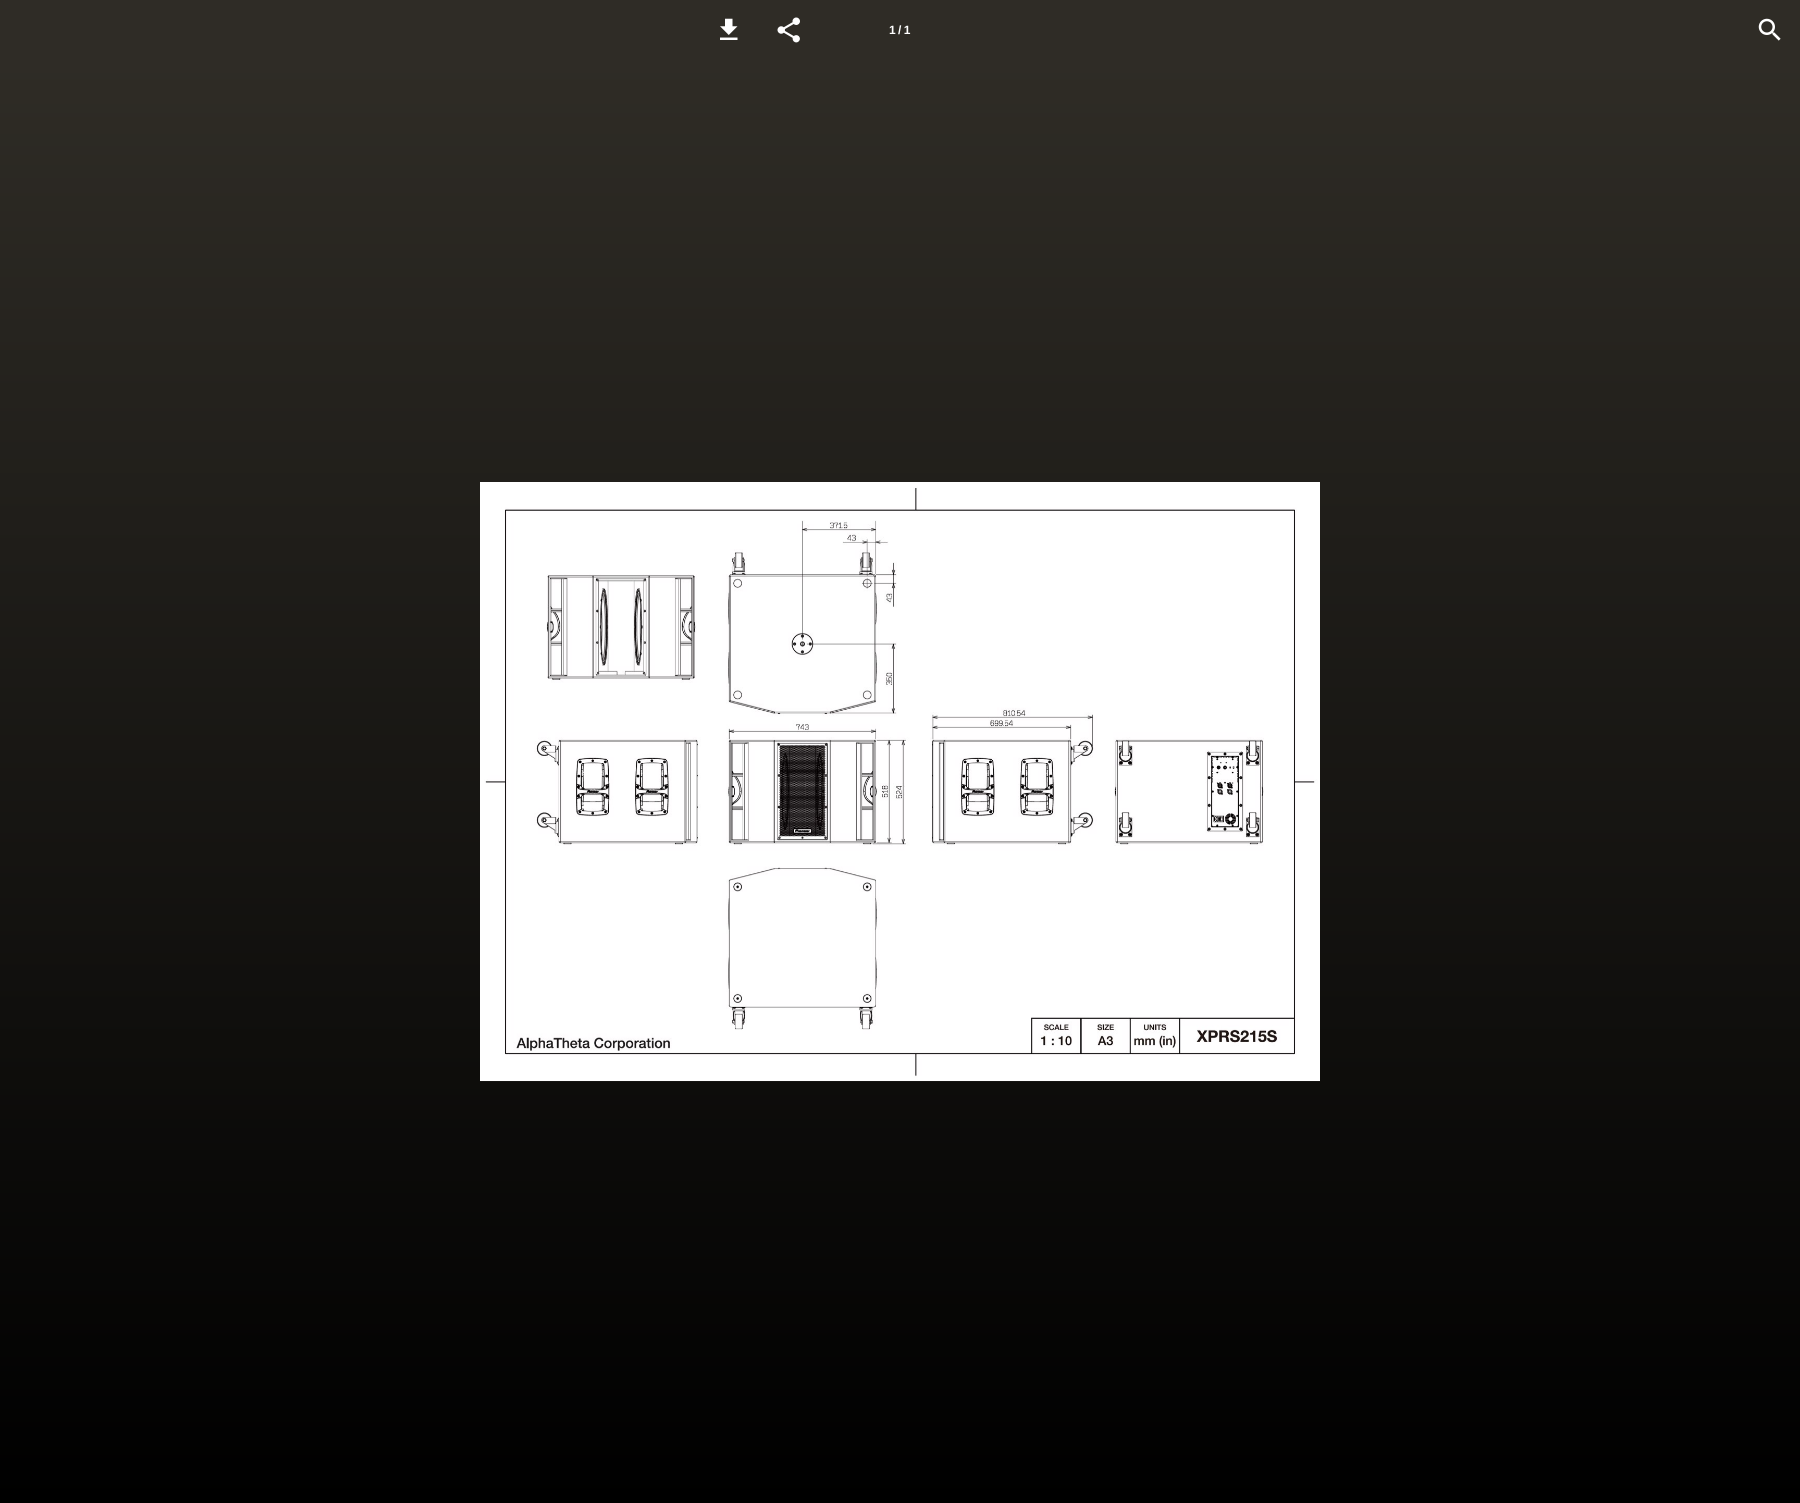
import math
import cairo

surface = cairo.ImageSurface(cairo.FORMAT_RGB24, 1800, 1503)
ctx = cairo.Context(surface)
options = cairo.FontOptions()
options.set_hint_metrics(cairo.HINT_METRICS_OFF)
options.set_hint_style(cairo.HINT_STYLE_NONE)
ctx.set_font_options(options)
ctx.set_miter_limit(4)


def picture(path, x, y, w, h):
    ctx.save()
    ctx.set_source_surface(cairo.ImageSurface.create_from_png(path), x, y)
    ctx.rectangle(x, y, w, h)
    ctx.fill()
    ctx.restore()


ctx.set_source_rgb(1, 1, 1)
ctx.paint()
ctx.set_source_rgb(0.184, 0.173, 0.149)
ctx.rectangle(0, 0, 1800, 60)
ctx.fill()
picture("img1.png", 720, 18, 18, 22)
picture("img2.png", 777, 17, 23, 26)
ctx.select_font_face("Liberation Sans", cairo.FONT_SLANT_NORMAL, cairo.FONT_WEIGHT_BOLD)
ctx.set_font_size(12)
ctx.set_source_rgb(1, 1, 1)
ctx.move_to(889, 34)
ctx.show_text("1 / 1")
picture("img3.png", 1758, 18, 23, 23)
gradient = cairo.LinearGradient(900, 60, 900, 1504)
gradient.add_color_stop_rgba(0, 0.184, 0.173, 0.149, 1)
gradient.add_color_stop_rgba(1, 0, 0, 0, 1)
ctx.set_source(gradient)
ctx.rectangle(0, 60, 1800, 1443)
ctx.fill()
picture("img4.png", 480, 482, 840, 600)
surface.write_to_png("page.png")
